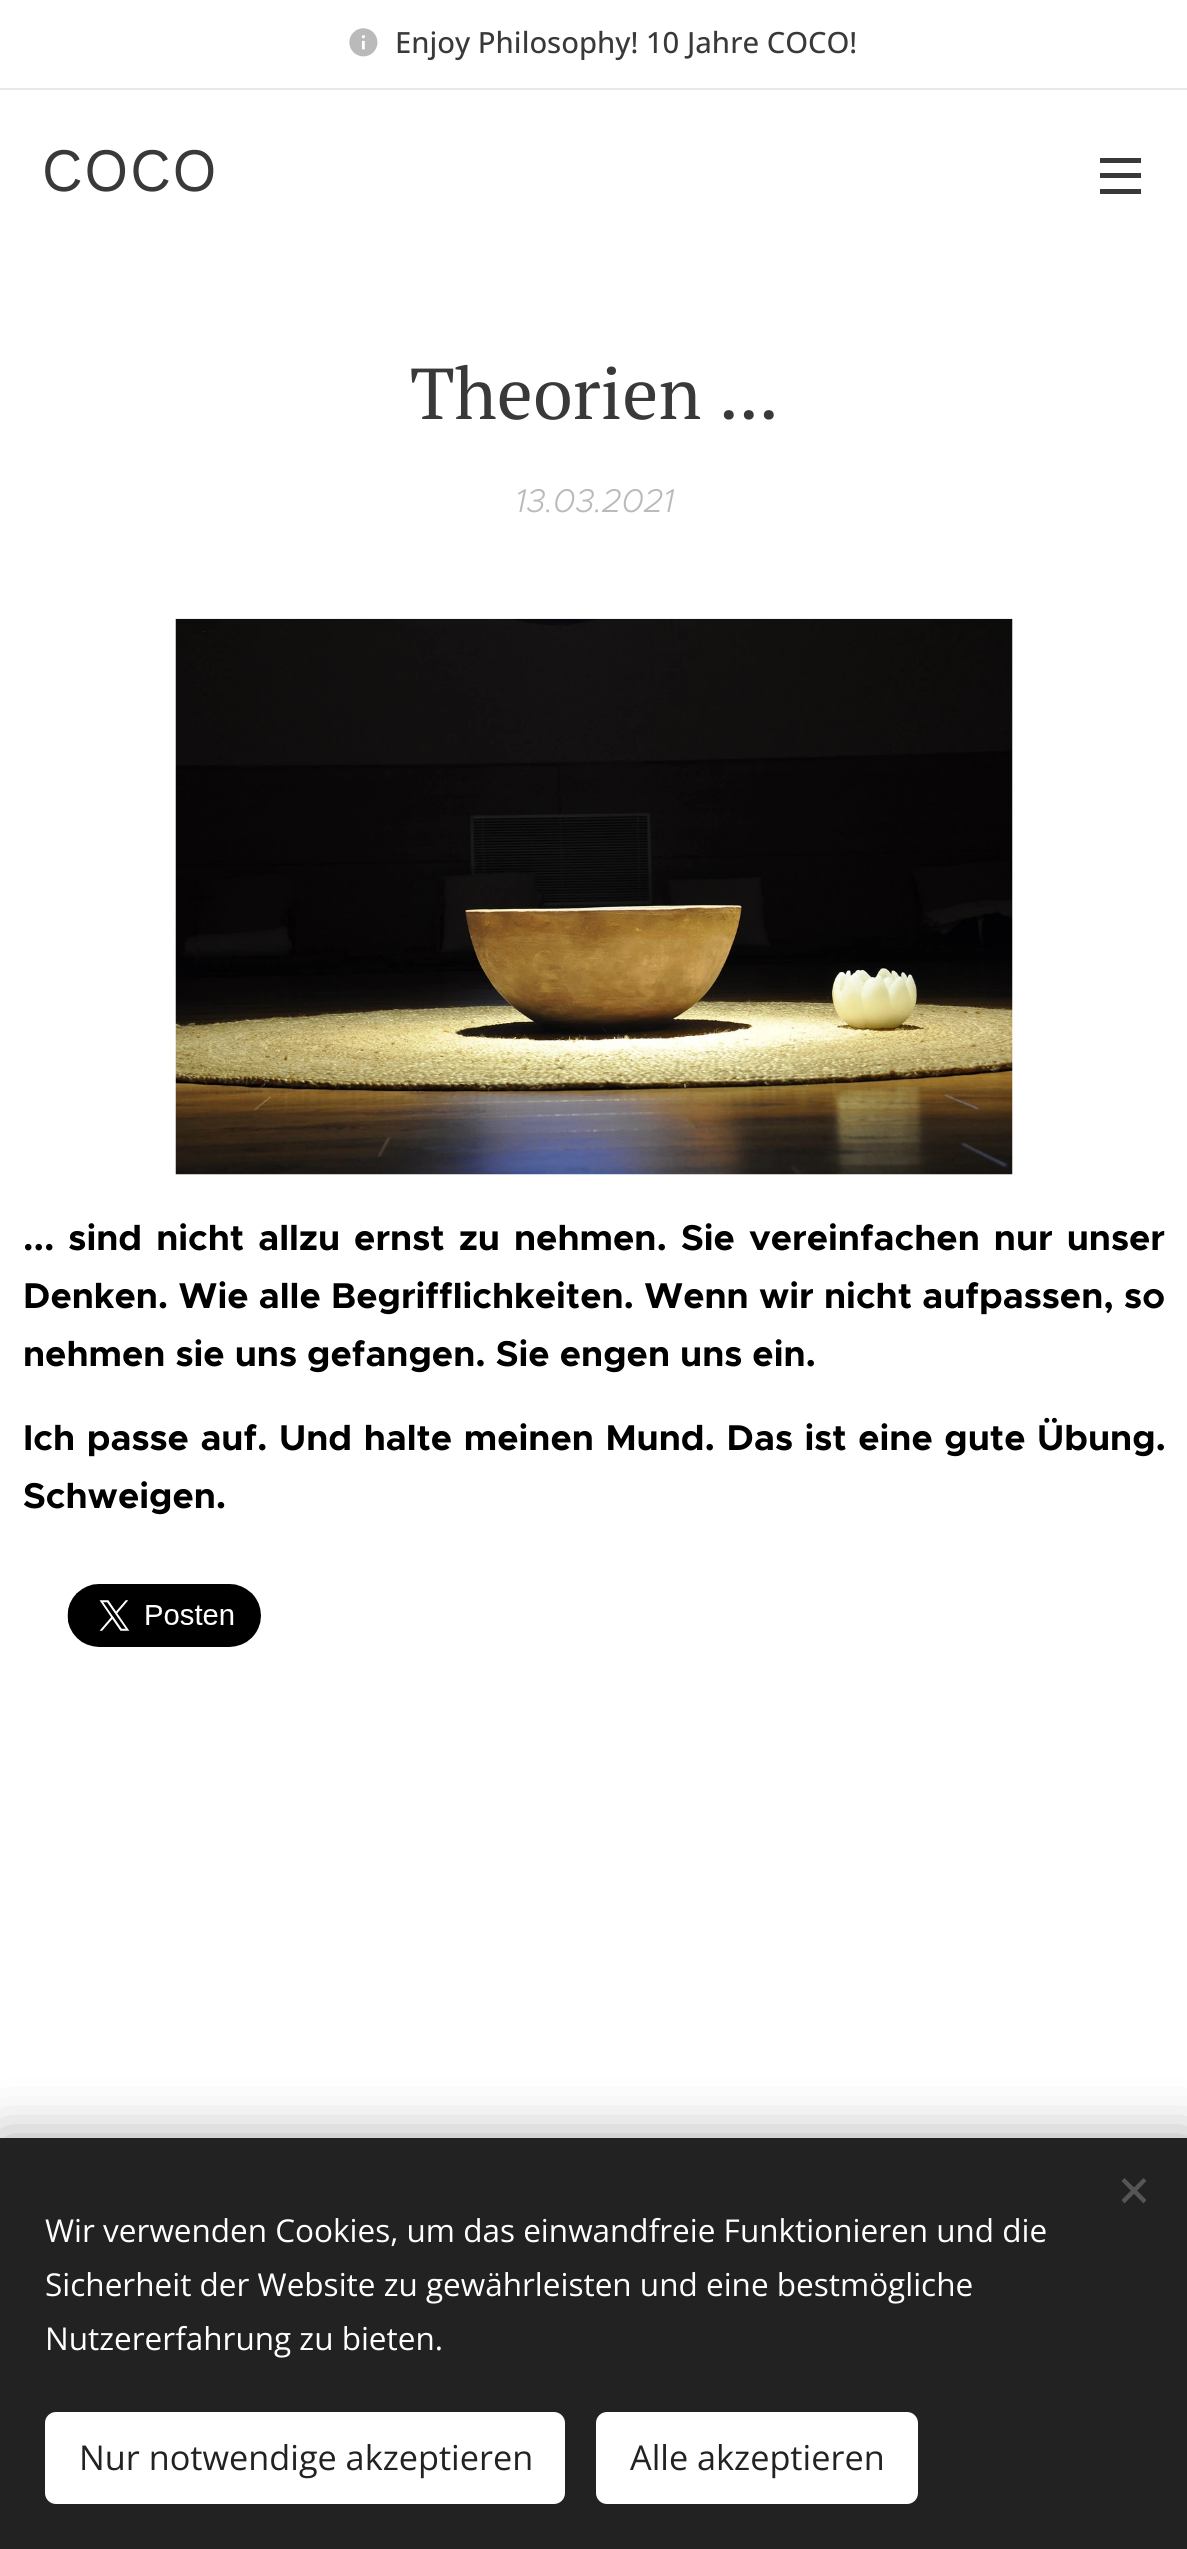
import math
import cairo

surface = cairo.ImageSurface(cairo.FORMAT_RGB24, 1187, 2549)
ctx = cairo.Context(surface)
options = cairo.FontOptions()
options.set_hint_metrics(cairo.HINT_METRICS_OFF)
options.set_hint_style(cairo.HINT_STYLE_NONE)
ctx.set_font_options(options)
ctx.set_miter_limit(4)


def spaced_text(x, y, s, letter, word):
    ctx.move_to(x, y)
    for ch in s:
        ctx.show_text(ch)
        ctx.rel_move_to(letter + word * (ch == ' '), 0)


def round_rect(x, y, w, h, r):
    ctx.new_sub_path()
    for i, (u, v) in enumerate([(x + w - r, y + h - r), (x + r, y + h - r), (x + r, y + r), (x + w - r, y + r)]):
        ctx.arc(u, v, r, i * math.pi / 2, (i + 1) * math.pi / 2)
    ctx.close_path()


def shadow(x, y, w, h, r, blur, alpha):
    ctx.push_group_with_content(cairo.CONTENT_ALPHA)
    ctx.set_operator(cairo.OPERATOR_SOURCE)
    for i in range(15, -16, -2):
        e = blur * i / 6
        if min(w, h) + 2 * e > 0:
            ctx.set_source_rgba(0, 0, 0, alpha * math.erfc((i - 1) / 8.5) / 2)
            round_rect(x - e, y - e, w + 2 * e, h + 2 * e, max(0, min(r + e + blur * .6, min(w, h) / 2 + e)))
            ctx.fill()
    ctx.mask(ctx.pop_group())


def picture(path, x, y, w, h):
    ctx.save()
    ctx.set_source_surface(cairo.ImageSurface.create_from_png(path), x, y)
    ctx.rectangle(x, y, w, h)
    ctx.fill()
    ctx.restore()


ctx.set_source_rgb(1, 1, 1)
ctx.paint()
picture("img1.png", 349, 28, 29, 29)
ctx.select_font_face("Open Sans Medium")
ctx.set_font_size(29.25)
ctx.set_source_rgb(0.224, 0.224, 0.224)
ctx.move_to(395, 53)
ctx.show_text("Enjoy Philosophy! 10 Jahre COCO!")
ctx.set_source_rgb(0.91, 0.91, 0.91)
ctx.rectangle(0, 88, 1187, 2)
ctx.fill()
ctx.select_font_face("Work Sans")
ctx.set_font_size(61.5)
ctx.set_source_rgb(0.224, 0.224, 0.224)
ctx.move_to(41, 191)
ctx.show_text("COCO")
ctx.rectangle(1100, 173, 41, 5)
ctx.fill()
ctx.rectangle(1100, 158, 41, 5)
ctx.fill()
ctx.rectangle(1100, 189, 41, 5)
ctx.fill()
ctx.select_font_face("PT Serif")
ctx.set_font_size(72)
ctx.move_to(410, 419)
ctx.show_text("Theorien ...")
ctx.select_font_face("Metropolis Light", cairo.FONT_SLANT_ITALIC)
ctx.set_font_size(33)
ctx.set_source_rgb(0.729, 0.729, 0.729)
ctx.move_to(515, 512)
ctx.show_text("13.03.2021")
picture("img2.png", 175, 618, 838, 557)
ctx.select_font_face("Metropolis", cairo.FONT_SLANT_NORMAL, cairo.FONT_WEIGHT_BOLD)
ctx.set_font_size(36)
ctx.set_source_rgb(0, 0, 0)
spaced_text(23, 1250, "... sind nicht allzu ernst zu nehmen. Sie vereinfachen nur unser", 0, 4)
spaced_text(23, 1308, "Denken. Wie alle Begrifflichkeiten. Wenn wir nicht aufpassen, so", 0, 0.25)
ctx.move_to(23, 1366)
ctx.show_text("nehmen sie uns gefangen. Sie engen uns ein.")
spaced_text(23, 1450, "Ich passe auf. Und halte meinen Mund. Das ist eine gute Übung.", 0, 1.5)
ctx.move_to(23, 1508)
ctx.show_text("Schweigen.")
picture("img3.png", 67, 1584, 194, 63)
ctx.set_source_rgb(0, 0, 0)
shadow(0, 2138, 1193, 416, 0, 28, 0.33)
ctx.set_source_rgb(0.133, 0.133, 0.133)
ctx.rectangle(0, 2138, 1187, 411)
ctx.fill()
ctx.set_source_rgb(0.333, 0.333, 0.333)
ctx.new_path()
ctx.move_to(1121.5, 2200)
ctx.line_to(1143.5, 2178)
ctx.line_to(1146.5, 2181)
ctx.line_to(1124.5, 2203.5)
ctx.close_path()
ctx.fill()
ctx.new_path()
ctx.move_to(1124.5, 2178)
ctx.line_to(1146.5, 2200)
ctx.line_to(1143.5, 2203.5)
ctx.line_to(1121.5, 2181)
ctx.close_path()
ctx.fill()
ctx.select_font_face("Open Sans")
ctx.set_font_size(31.5)
ctx.set_source_rgb(1, 1, 1)
ctx.move_to(45, 2242)
ctx.show_text("Wir verwenden Cookies, um das einwandfreie Funktionieren und die")
ctx.move_to(45, 2296)
ctx.show_text("Sicherheit der Website zu gewährleisten und eine bestmögliche")
ctx.move_to(45, 2350)
ctx.show_text("Nutzererfahrung zu bieten.")
round_rect(45, 2412, 520, 92, 11)
ctx.fill()
ctx.set_font_size(34.25)
ctx.set_source_rgb(0.133, 0.133, 0.133)
ctx.move_to(79, 2470)
ctx.show_text("Nur notwendige akzeptieren")
ctx.set_source_rgb(1, 1, 1)
round_rect(596, 2412, 322, 92, 11)
ctx.fill()
ctx.set_source_rgb(0.133, 0.133, 0.133)
ctx.move_to(630, 2470)
ctx.show_text("Alle akzeptieren")
surface.write_to_png("page.png")
